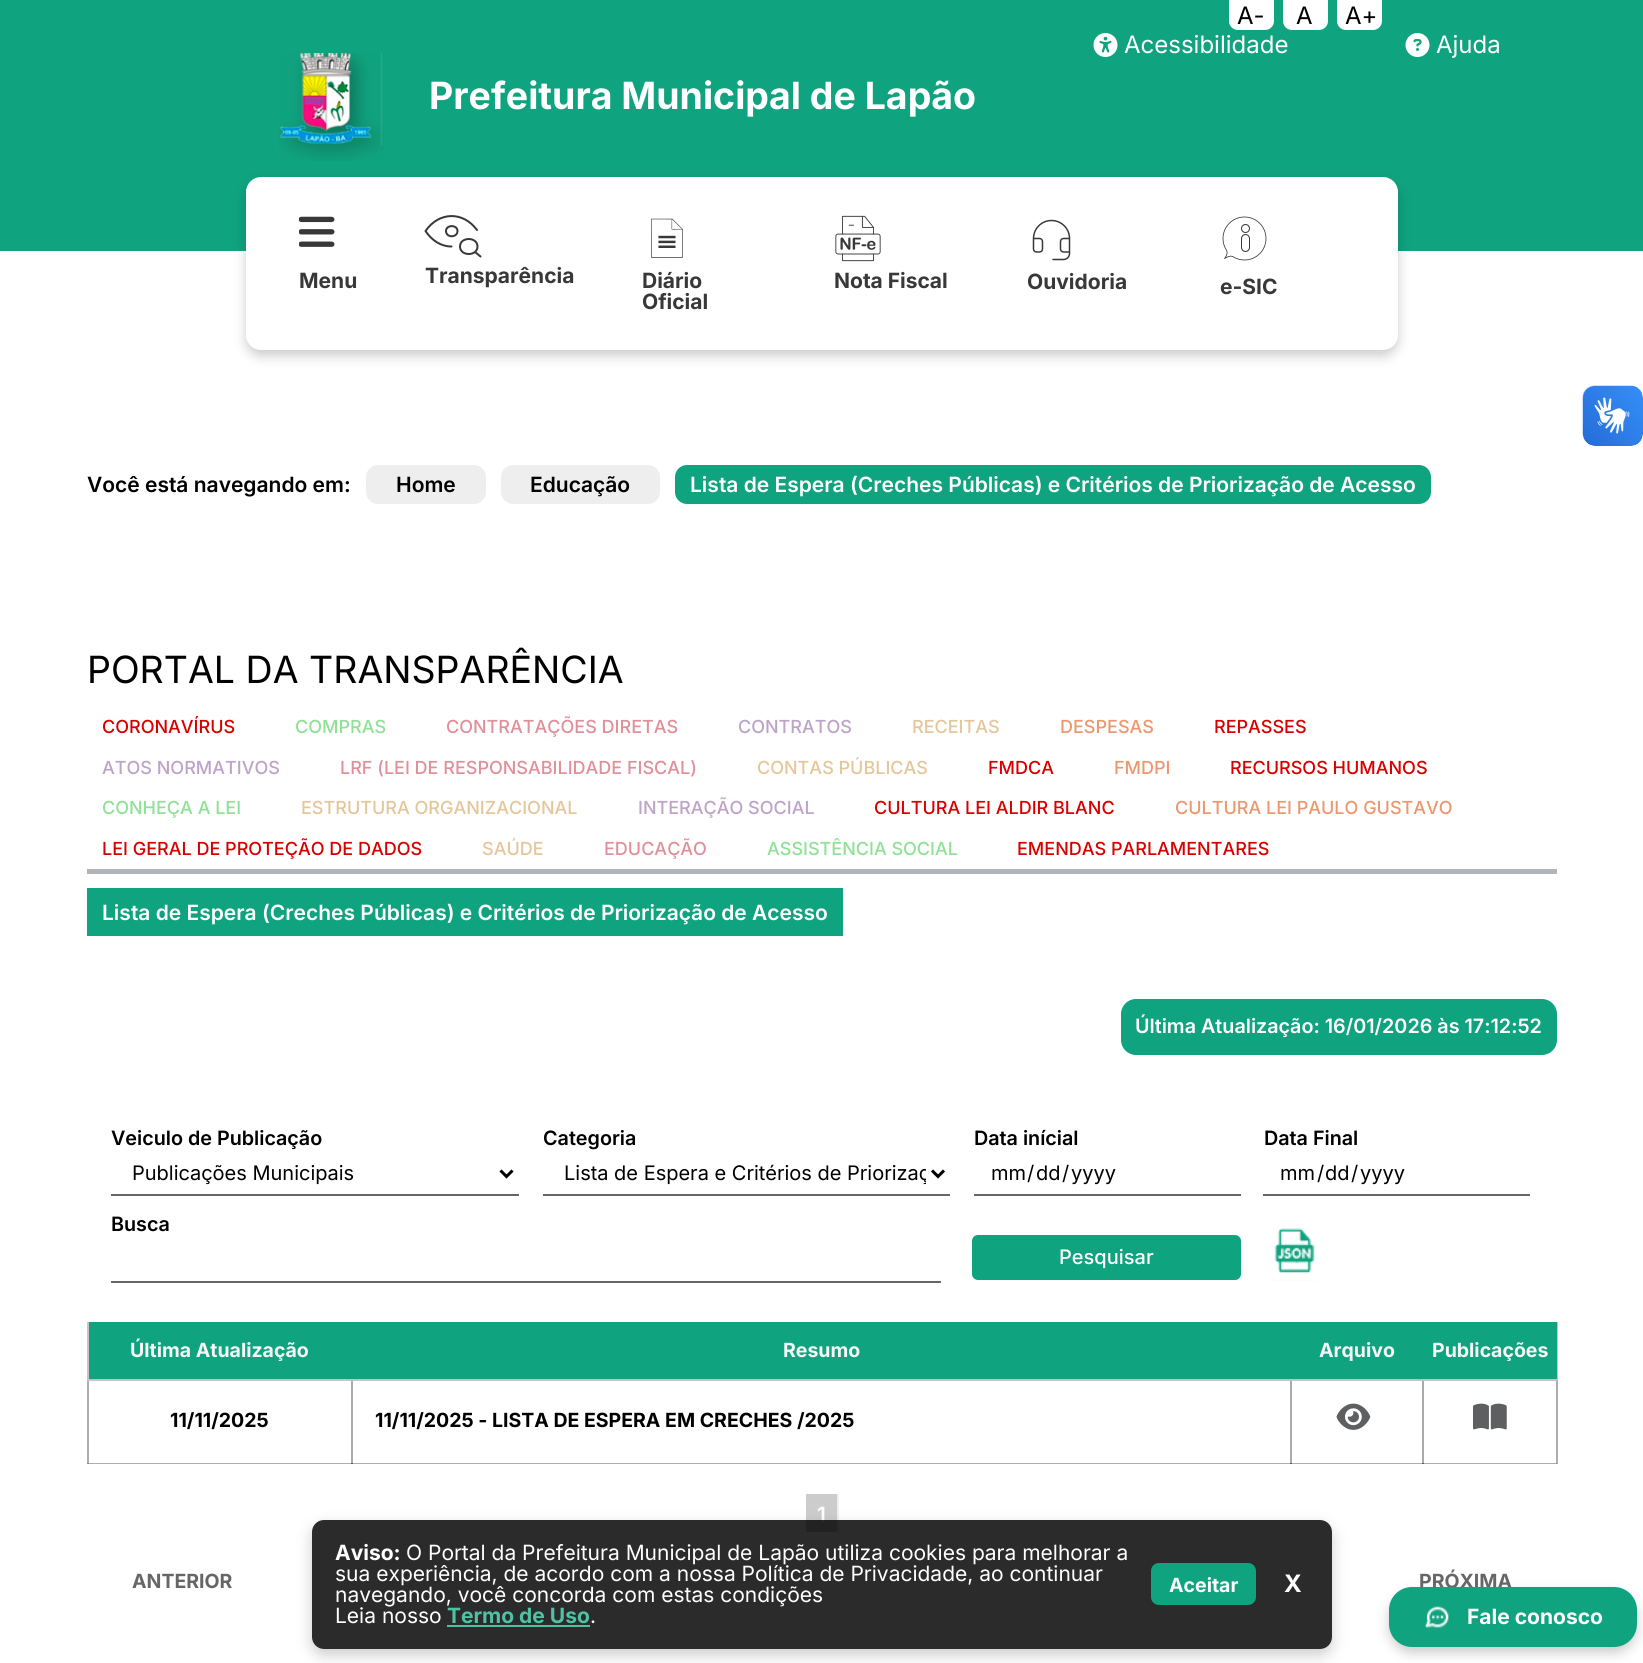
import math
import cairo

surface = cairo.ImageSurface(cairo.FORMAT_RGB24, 1643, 1663)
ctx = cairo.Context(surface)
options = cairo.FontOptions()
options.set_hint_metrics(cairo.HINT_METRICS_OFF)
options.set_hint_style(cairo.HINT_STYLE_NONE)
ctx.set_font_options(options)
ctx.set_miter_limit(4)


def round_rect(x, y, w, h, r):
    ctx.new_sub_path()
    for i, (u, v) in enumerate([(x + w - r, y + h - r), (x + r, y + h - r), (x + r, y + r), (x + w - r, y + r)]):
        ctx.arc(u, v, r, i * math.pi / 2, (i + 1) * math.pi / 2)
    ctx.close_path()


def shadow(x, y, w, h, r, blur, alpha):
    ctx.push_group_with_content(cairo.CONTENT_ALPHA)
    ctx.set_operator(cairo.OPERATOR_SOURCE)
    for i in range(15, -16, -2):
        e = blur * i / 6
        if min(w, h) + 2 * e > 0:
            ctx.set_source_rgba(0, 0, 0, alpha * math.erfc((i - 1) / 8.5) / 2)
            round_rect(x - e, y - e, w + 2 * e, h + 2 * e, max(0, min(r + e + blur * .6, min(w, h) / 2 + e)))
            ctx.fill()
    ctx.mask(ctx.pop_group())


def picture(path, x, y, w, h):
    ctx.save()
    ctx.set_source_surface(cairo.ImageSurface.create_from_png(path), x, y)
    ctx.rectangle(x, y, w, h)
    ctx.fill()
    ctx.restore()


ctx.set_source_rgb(1, 1, 1)
ctx.paint()
ctx.set_source_rgb(0.671, 0.671, 0.671)
ctx.rectangle(351, 1379, 2, 85)
ctx.fill()
ctx.rectangle(1290, 1379, 2, 85)
ctx.fill()
ctx.rectangle(1422, 1379, 2, 85)
ctx.fill()
ctx.set_source_rgb(0.063, 0.639, 0.498)
ctx.rectangle(0, 0, 1643, 251)
ctx.fill()
ctx.set_source_rgb(1, 1, 1)
ctx.new_path()
ctx.move_to(1229, 0)
ctx.line_to(1274, 0)
ctx.line_to(1274, 21)
ctx.curve_to(1274, 26, 1270, 30, 1265, 30)
ctx.line_to(1238, 30)
ctx.curve_to(1233, 30, 1229, 26, 1229, 21)
ctx.close_path()
ctx.fill()
ctx.select_font_face("Inter")
ctx.set_font_size(24)
ctx.set_source_rgb(0, 0, 0)
ctx.move_to(1237, 24)
ctx.show_text("A-")
ctx.set_source_rgb(1, 1, 1)
ctx.new_path()
ctx.move_to(1283, 0)
ctx.line_to(1328, 0)
ctx.line_to(1328, 21)
ctx.curve_to(1328, 26, 1324, 30, 1319, 30)
ctx.line_to(1292, 30)
ctx.curve_to(1287, 30, 1283, 26, 1283, 21)
ctx.close_path()
ctx.fill()
ctx.set_source_rgb(0, 0, 0)
ctx.move_to(1296, 24)
ctx.show_text("A")
ctx.set_source_rgb(1, 1, 1)
ctx.new_path()
ctx.move_to(1337, 0)
ctx.line_to(1382, 0)
ctx.line_to(1382, 21)
ctx.curve_to(1382, 26, 1378, 30, 1373, 30)
ctx.line_to(1346, 30)
ctx.curve_to(1341, 30, 1337, 26, 1337, 21)
ctx.close_path()
ctx.fill()
ctx.set_source_rgb(0, 0, 0)
ctx.move_to(1345, 24)
ctx.show_text("A+")
picture("img1.png", 1093, 33, 25, 24)
ctx.set_source_rgb(1, 1, 1)
ctx.move_to(1124, 53)
ctx.show_text("Acessibilidade")
picture("img2.png", 1405, 33, 25, 24)
ctx.move_to(1436, 53)
ctx.show_text("Ajuda")
picture("img3.png", 279, 53, 105, 108)
ctx.select_font_face("Inter", cairo.FONT_SLANT_NORMAL, cairo.FONT_WEIGHT_BOLD)
ctx.set_font_size(37.5)
ctx.move_to(429, 109)
ctx.show_text("Prefeitura Municipal de Lapão")
ctx.set_source_rgb(0, 0, 0)
shadow(246, 183, 1152, 173, 15, 6, 0.2)
ctx.set_source_rgb(1, 1, 1)
round_rect(246, 177, 1152, 173, 15)
ctx.fill()
picture("img4.png", 299, 216, 36, 31)
ctx.set_font_size(21)
ctx.set_source_rgb(0.22, 0.22, 0.22)
ctx.move_to(299, 288)
ctx.show_text("Menu")
ctx.new_path()
ctx.move_to(446, 231)
ctx.curve_to(446, 238, 457.5, 238, 457.5, 231)
ctx.curve_to(457.5, 224.5, 446, 224.5, 446, 231)
ctx.close_path()
ctx.move_to(451.5, 246.5)
ctx.curve_to(440.5, 246.5, 431.5, 240, 425.5, 231)
ctx.curve_to(439, 211.5, 463, 211, 477, 230)
ctx.move_to(475, 252)
ctx.line_to(480.5, 256.5)
ctx.move_to(460, 246.5)
ctx.curve_to(460, 256.5, 477.5, 256.5, 477.5, 246.5)
ctx.curve_to(477.5, 236.5, 460, 236.5, 460, 246.5)
ctx.close_path()
ctx.set_line_cap(cairo.LINE_CAP_ROUND)
ctx.set_line_join(cairo.LINE_JOIN_ROUND)
ctx.stroke()
ctx.move_to(425, 283)
ctx.show_text("Transparência")
picture("img5.png", 651, 218, 32, 40)
ctx.move_to(642, 288)
ctx.show_text("Diário")
ctx.move_to(642, 309)
ctx.show_text("Oficial")
picture("img6.png", 835, 215, 46, 47)
ctx.move_to(834, 288)
ctx.show_text("Nota Fiscal")
picture("img7.png", 1032, 219, 39, 42)
ctx.move_to(1027, 289)
ctx.show_text("Ouvidoria")
picture("img8.png", 1222, 216, 45, 45)
ctx.move_to(1220, 294)
ctx.show_text("e-SIC")
ctx.set_source_rgb(0, 0, 0)
shadow(1389, 1593, 248, 60, 23, 6, 0.2)
ctx.set_font_size(19.5)
ctx.set_source_rgb(0.4, 0.4, 0.4)
ctx.move_to(1419, 1588)
ctx.show_text("PRÓXIMA")
ctx.set_source_rgb(0.063, 0.639, 0.498)
round_rect(1389, 1587, 248, 60, 23)
ctx.fill()
picture("img9.png", 1425, 1606, 24, 23)
ctx.set_font_size(21)
ctx.set_source_rgb(1, 1, 1)
ctx.move_to(1467, 1624)
ctx.show_text("Fale conosco")
picture("img10.png", 1582, 385, 61, 61)
picture("img11.png", 1583, 386, 60, 60)
ctx.select_font_face("Inter SemiBold")
ctx.set_source_rgb(0, 0, 0)
ctx.move_to(87, 492)
ctx.show_text("Você está navegando em:")
ctx.set_source_rgb(0.933, 0.933, 0.933)
round_rect(366, 465, 120, 39, 12)
ctx.fill()
ctx.set_source_rgb(0, 0, 0)
ctx.move_to(396, 492)
ctx.show_text("Home")
ctx.set_source_rgb(0.933, 0.933, 0.933)
round_rect(501, 465, 159, 39, 12)
ctx.fill()
ctx.set_source_rgb(0, 0, 0)
ctx.move_to(530, 492)
ctx.show_text("Educação")
ctx.set_source_rgb(0.063, 0.639, 0.498)
round_rect(675, 465, 756, 39, 12)
ctx.fill()
ctx.set_source_rgb(1, 1, 1)
ctx.move_to(690, 492)
ctx.show_text("Lista de Espera (Creches Públicas) e Critérios de Priorização de Acesso")
ctx.select_font_face("Inter")
ctx.set_font_size(37.5)
ctx.set_source_rgb(0, 0, 0)
ctx.move_to(87, 683)
ctx.show_text("PORTAL DA TRANSPARÊNCIA")
ctx.select_font_face("Inter Medium")
ctx.set_font_size(18)
ctx.set_source_rgb(0.851, 0, 0)
ctx.move_to(102, 733)
ctx.show_text("CORONAVÍRUS")
ctx.set_source_rgb(0.561, 0.882, 0.584)
ctx.move_to(295, 733)
ctx.show_text("COMPRAS")
ctx.set_source_rgb(0.882, 0.561, 0.6)
ctx.move_to(446, 733)
ctx.show_text("CONTRATAÇÕES DIRETAS")
ctx.set_source_rgb(0.745, 0.639, 0.788)
ctx.move_to(738, 733)
ctx.show_text("CONTRATOS")
ctx.set_source_rgb(0.898, 0.776, 0.604)
ctx.move_to(912, 733)
ctx.show_text("RECEITAS")
ctx.set_source_rgb(0.922, 0.592, 0.439)
ctx.move_to(1060, 733)
ctx.show_text("DESPESAS")
ctx.set_source_rgb(0.851, 0, 0)
ctx.move_to(1214, 733)
ctx.show_text("REPASSES")
ctx.set_source_rgb(0.745, 0.639, 0.788)
ctx.move_to(102, 774)
ctx.show_text("ATOS NORMATIVOS")
ctx.set_source_rgb(0.882, 0.561, 0.6)
ctx.move_to(340, 774)
ctx.show_text("LRF (LEI DE RESPONSABILIDADE FISCAL)")
ctx.set_source_rgb(0.898, 0.776, 0.604)
ctx.move_to(757, 774)
ctx.show_text("CONTAS PÚBLICAS")
ctx.set_source_rgb(0.851, 0, 0)
ctx.move_to(988, 774)
ctx.show_text("FMDCA")
ctx.set_source_rgb(0.922, 0.592, 0.439)
ctx.move_to(1114, 774)
ctx.show_text("FMDPI")
ctx.set_source_rgb(0.851, 0, 0)
ctx.move_to(1230, 774)
ctx.show_text("RECURSOS HUMANOS")
ctx.set_source_rgb(0.561, 0.882, 0.584)
ctx.move_to(102, 814)
ctx.show_text("CONHEÇA A LEI")
ctx.set_source_rgb(0.898, 0.776, 0.604)
ctx.move_to(301, 814)
ctx.show_text("ESTRUTURA ORGANIZACIONAL")
ctx.set_source_rgb(0.745, 0.639, 0.788)
ctx.move_to(638, 814)
ctx.show_text("INTERAÇÃO SOCIAL")
ctx.set_source_rgb(0.851, 0, 0)
ctx.move_to(874, 814)
ctx.show_text("CULTURA LEI ALDIR BLANC")
ctx.set_source_rgb(0.922, 0.592, 0.439)
ctx.move_to(1175, 814)
ctx.show_text("CULTURA LEI PAULO GUSTAVO")
ctx.set_source_rgb(0.851, 0, 0)
ctx.move_to(102, 855)
ctx.show_text("LEI GERAL DE PROTEÇÃO DE DADOS")
ctx.set_source_rgb(0.898, 0.776, 0.604)
ctx.move_to(482, 855)
ctx.show_text("SAÚDE")
ctx.set_source_rgb(0.882, 0.561, 0.6)
ctx.move_to(604, 855)
ctx.show_text("EDUCAÇÃO")
ctx.set_source_rgb(0.561, 0.882, 0.584)
ctx.move_to(767, 855)
ctx.show_text("ASSISTÊNCIA SOCIAL")
ctx.set_source_rgb(0.851, 0, 0)
ctx.move_to(1017, 855)
ctx.show_text("EMENDAS PARLAMENTARES")
ctx.set_source_rgb(0.702, 0.714, 0.722)
ctx.rectangle(87, 869, 1470, 5)
ctx.fill()
ctx.set_source_rgb(0.063, 0.639, 0.498)
ctx.rectangle(87, 888, 756, 48)
ctx.fill()
ctx.select_font_face("Inter SemiBold")
ctx.set_font_size(21)
ctx.set_source_rgb(1, 1, 1)
ctx.move_to(102, 920)
ctx.show_text("Lista de Espera (Creches Públicas) e Critérios de Priorização de Acesso")
ctx.set_source_rgb(0.063, 0.639, 0.498)
round_rect(1121, 999, 436, 56, 15)
ctx.fill()
ctx.set_font_size(19.75)
ctx.set_source_rgb(1, 1, 1)
ctx.move_to(1135, 1033)
ctx.show_text("Última Atualização: 16/01/2026 às 17:12:52")
ctx.set_source_rgb(0, 0, 0)
ctx.move_to(111, 1145)
ctx.show_text("Veiculo de Publicação")
ctx.set_source_rgb(0.4, 0.4, 0.4)
ctx.rectangle(111, 1194, 408, 2)
ctx.fill()
ctx.new_path()
ctx.move_to(500.5, 1170.5)
ctx.line_to(506.5, 1176.5)
ctx.line_to(512.5, 1170.5)
ctx.set_source_rgb(0, 0, 0)
ctx.set_line_width(3)
ctx.set_line_cap(cairo.LINE_CAP_BUTT)
ctx.set_line_join(cairo.LINE_JOIN_MITER)
ctx.stroke()
ctx.select_font_face("Inter")
ctx.set_font_size(20)
ctx.move_to(132, 1180)
ctx.show_text("Publicações Municipais")
ctx.select_font_face("Inter SemiBold")
ctx.set_font_size(19.75)
ctx.move_to(543, 1145)
ctx.show_text("Categoria")
ctx.set_source_rgb(0.4, 0.4, 0.4)
ctx.rectangle(543, 1194, 407, 2)
ctx.fill()
ctx.new_path()
ctx.move_to(932, 1170.5)
ctx.line_to(938, 1176.5)
ctx.line_to(944, 1170.5)
ctx.set_source_rgb(0, 0, 0)
ctx.stroke()
ctx.save()
ctx.rectangle(564, 1160, 362, 27)
ctx.clip()
ctx.select_font_face("Inter")
ctx.set_font_size(20)
ctx.move_to(564, 1180)
ctx.show_text("Lista de Espera e Critérios de Priorizaç")
ctx.restore()
ctx.move_to(974, 1145)
ctx.show_text("Data inícial")
ctx.set_source_rgb(0.4, 0.4, 0.4)
ctx.rectangle(974, 1194, 267, 2)
ctx.fill()
ctx.select_font_face("Inter")
ctx.set_font_size(20)
ctx.set_source_rgb(0, 0, 0)
ctx.move_to(991, 1180)
ctx.show_text("mm")
ctx.move_to(1027, 1180)
ctx.show_text("/")
ctx.move_to(1036, 1180)
ctx.show_text("dd")
ctx.move_to(1062, 1180)
ctx.show_text("/")
ctx.move_to(1071, 1180)
ctx.show_text("yyyy")
ctx.select_font_face("Inter SemiBold")
ctx.set_font_size(19.75)
ctx.move_to(1264, 1145)
ctx.show_text("Data Final")
ctx.set_source_rgb(0.4, 0.4, 0.4)
ctx.rectangle(1263, 1194, 267, 2)
ctx.fill()
ctx.select_font_face("Inter")
ctx.set_font_size(20)
ctx.set_source_rgb(0, 0, 0)
ctx.move_to(1280, 1180)
ctx.show_text("mm")
ctx.move_to(1317, 1180)
ctx.show_text("/")
ctx.move_to(1325, 1180)
ctx.show_text("dd")
ctx.move_to(1351, 1180)
ctx.show_text("/")
ctx.move_to(1360, 1180)
ctx.show_text("yyyy")
ctx.select_font_face("Inter SemiBold")
ctx.set_font_size(19.75)
ctx.move_to(111, 1231)
ctx.show_text("Busca")
ctx.set_source_rgb(0.4, 0.4, 0.4)
ctx.rectangle(111, 1281, 830, 2)
ctx.fill()
ctx.set_source_rgb(0.063, 0.639, 0.498)
round_rect(972, 1235, 269, 45, 6)
ctx.fill()
ctx.select_font_face("Inter Medium")
ctx.set_font_size(20)
ctx.set_source_rgb(1, 1, 1)
ctx.move_to(1059, 1264)
ctx.show_text("Pesquisar")
ctx.set_source_rgb(0.063, 0.639, 0.498)
ctx.rectangle(1274, 1224, 43, 50)
ctx.fill()
picture("img12.png", 1263, 1221, 63, 60)
ctx.set_source_rgb(0.682, 0.682, 0.682)
ctx.rectangle(1556, 1379, 2, 85)
ctx.fill()
ctx.rectangle(87, 1463, 1470, 1)
ctx.fill()
ctx.set_source_rgb(0.376, 0.376, 0.376)
ctx.rectangle(351, 1463, 2, 1)
ctx.fill()
ctx.rectangle(1290, 1463, 2, 1)
ctx.fill()
ctx.rectangle(1422, 1463, 2, 1)
ctx.fill()
ctx.set_source_rgb(0.561, 0.561, 0.561)
ctx.rectangle(1556, 1463, 1, 1)
ctx.fill()
ctx.set_source_rgb(0.682, 0.682, 0.682)
ctx.rectangle(87, 1379, 2, 85)
ctx.fill()
ctx.set_source_rgb(0.561, 0.561, 0.561)
ctx.rectangle(87, 1463, 2, 1)
ctx.fill()
ctx.set_source_rgb(0.78, 0.765, 0.765)
ctx.rectangle(87, 1379, 1470, 2)
ctx.fill()
ctx.rectangle(87, 1322, 2, 58)
ctx.fill()
ctx.set_source_rgb(0.063, 0.639, 0.498)
ctx.rectangle(89, 1322, 1468, 57)
ctx.fill()
ctx.select_font_face("Inter", cairo.FONT_SLANT_NORMAL, cairo.FONT_WEIGHT_BOLD)
ctx.set_font_size(19.5)
ctx.set_source_rgb(0.969, 0.965, 0.965)
ctx.move_to(130, 1357)
ctx.show_text("Última Atualização")
ctx.move_to(783, 1357)
ctx.show_text("Resumo")
ctx.move_to(1319, 1357)
ctx.show_text("Arquivo")
ctx.set_source_rgb(0.78, 0.765, 0.765)
ctx.rectangle(1557, 1322, 1, 58)
ctx.fill()
ctx.set_source_rgb(0.969, 0.965, 0.965)
ctx.move_to(1432, 1357)
ctx.show_text("Publicações")
ctx.set_source_rgb(0, 0, 0)
ctx.move_to(170, 1427)
ctx.show_text("11/11/2025")
ctx.move_to(375, 1427)
ctx.show_text("11/11/2025 - LISTA DE ESPERA EM CRECHES /2025")
picture("img13.png", 1336, 1403, 35, 27)
picture("img14.png", 1473, 1403, 34, 27)
ctx.set_source_rgb(0.8, 0.8, 0.8)
ctx.rectangle(806, 1494, 31, 38)
ctx.fill()
ctx.set_source_rgb(0.937, 0.937, 0.937)
ctx.rectangle(837, 1494, 2, 38)
ctx.fill()
ctx.select_font_face("Inter SemiBold")
ctx.set_font_size(21)
ctx.set_source_rgb(1, 1, 1)
ctx.move_to(817, 1522)
ctx.show_text("1")
ctx.select_font_face("Inter", cairo.FONT_SLANT_NORMAL, cairo.FONT_WEIGHT_BOLD)
ctx.set_font_size(19.5)
ctx.set_source_rgb(0.4, 0.4, 0.4)
ctx.move_to(132, 1588)
ctx.show_text("ANTERIOR")
ctx.save()
ctx.set_fill_rule(cairo.FILL_RULE_EVEN_ODD)
ctx.new_path()
ctx.move_to(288, 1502)
ctx.line_to(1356, 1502)
ctx.line_to(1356, 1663)
ctx.line_to(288, 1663)
ctx.close_path()
ctx.move_to(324, 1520)
ctx.line_to(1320, 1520)
ctx.curve_to(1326.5, 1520, 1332, 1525.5, 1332, 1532)
ctx.line_to(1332, 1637)
ctx.curve_to(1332, 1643.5, 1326.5, 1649, 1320, 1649)
ctx.line_to(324, 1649)
ctx.curve_to(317.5, 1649, 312, 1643.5, 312, 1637)
ctx.line_to(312, 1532)
ctx.curve_to(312, 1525.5, 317.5, 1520, 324, 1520)
ctx.close_path()
ctx.clip()
ctx.set_source_rgb(0, 0, 0)
shadow(312, 1526, 1020, 129, 12, 7.5, 0.2)
ctx.restore()
ctx.set_source_rgba(0, 0, 0, 0.83)
round_rect(312, 1520, 1020, 129, 12)
ctx.fill()
ctx.set_font_size(21)
ctx.set_source_rgb(1, 1, 1)
ctx.move_to(335, 1560)
ctx.show_text("Aviso:")
ctx.select_font_face("Inter")
ctx.move_to(406, 1560)
ctx.show_text("O Portal da Prefeitura Municipal de Lapão utiliza cookies para melhorar a")
ctx.move_to(335, 1581)
ctx.show_text("sua experiência, de acordo com a nossa Política de Privacidade, ao continuar")
ctx.move_to(335, 1602)
ctx.show_text("navegando, você concorda com estas condições")
ctx.move_to(335, 1623)
ctx.show_text("Leia nosso")
ctx.select_font_face("Inter", cairo.FONT_SLANT_NORMAL, cairo.FONT_WEIGHT_BOLD)
ctx.set_source_rgb(0.302, 0.765, 0.643)
ctx.move_to(447, 1623)
ctx.show_text("Termo de Uso")
ctx.rectangle(447, 1625, 143, 2)
ctx.fill()
ctx.select_font_face("Inter")
ctx.set_source_rgb(1, 1, 1)
ctx.move_to(590, 1623)
ctx.show_text(".")
ctx.set_source_rgb(0.063, 0.639, 0.498)
round_rect(1151, 1563, 105, 42, 8)
ctx.fill()
ctx.select_font_face("Inter", cairo.FONT_SLANT_NORMAL, cairo.FONT_WEIGHT_BOLD)
ctx.set_font_size(19.5)
ctx.set_source_rgb(1, 1, 1)
ctx.move_to(1169, 1592)
ctx.show_text("Aceitar")
ctx.set_font_size(24)
ctx.move_to(1284, 1592)
ctx.show_text("X")
surface.write_to_png("page.png")
